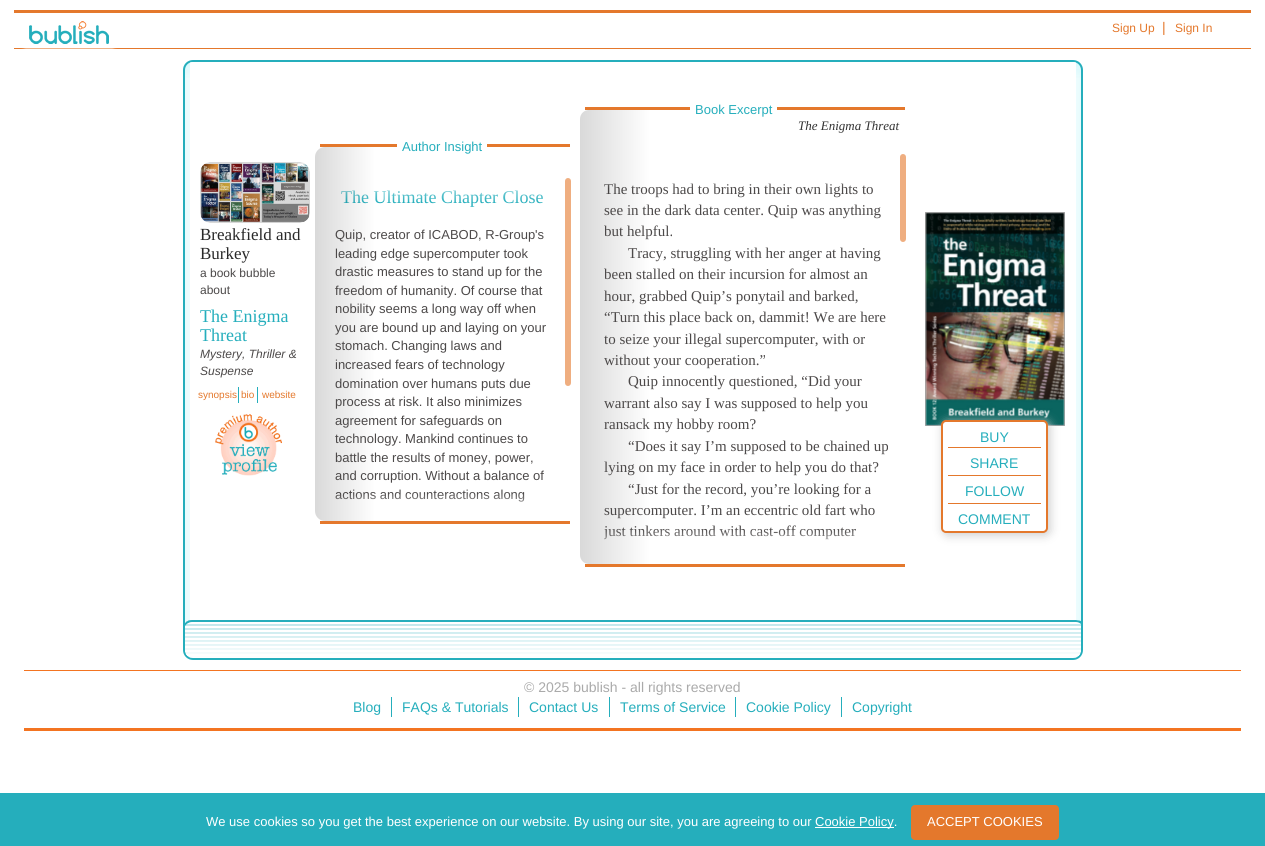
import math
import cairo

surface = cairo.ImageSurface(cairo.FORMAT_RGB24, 1265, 846)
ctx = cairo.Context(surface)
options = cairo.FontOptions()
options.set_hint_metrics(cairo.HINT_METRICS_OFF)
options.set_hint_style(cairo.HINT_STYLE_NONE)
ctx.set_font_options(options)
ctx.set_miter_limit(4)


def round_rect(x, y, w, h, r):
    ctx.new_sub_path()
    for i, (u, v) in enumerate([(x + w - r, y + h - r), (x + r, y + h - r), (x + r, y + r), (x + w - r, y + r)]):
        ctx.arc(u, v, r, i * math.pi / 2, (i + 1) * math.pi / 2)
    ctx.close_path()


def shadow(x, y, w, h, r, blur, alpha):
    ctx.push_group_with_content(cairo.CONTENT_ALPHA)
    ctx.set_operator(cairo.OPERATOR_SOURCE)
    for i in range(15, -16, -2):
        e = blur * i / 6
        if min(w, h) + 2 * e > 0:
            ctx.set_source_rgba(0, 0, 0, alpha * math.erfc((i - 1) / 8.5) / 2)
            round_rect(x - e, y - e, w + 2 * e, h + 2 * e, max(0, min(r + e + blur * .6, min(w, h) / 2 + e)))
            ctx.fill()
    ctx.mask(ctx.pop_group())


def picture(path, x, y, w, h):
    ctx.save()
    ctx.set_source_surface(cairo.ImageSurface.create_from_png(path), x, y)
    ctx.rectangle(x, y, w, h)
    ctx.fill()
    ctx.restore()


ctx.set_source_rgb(1, 1, 1)
ctx.paint()
ctx.set_source_rgb(0.894, 0.471, 0.173)
ctx.rectangle(14, 10, 1237, 3)
ctx.fill()
ctx.rectangle(14, 48, 1237, 1)
ctx.fill()
ctx.save()
ctx.set_fill_rule(cairo.FILL_RULE_EVEN_ODD)
ctx.new_path()
ctx.move_to(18, 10)
ctx.line_to(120, 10)
ctx.line_to(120, 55)
ctx.line_to(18, 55)
ctx.close_path()
ctx.move_to(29, 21)
ctx.line_to(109, 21)
ctx.line_to(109, 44)
ctx.line_to(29, 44)
ctx.close_path()
ctx.clip()
ctx.set_source_rgb(1, 1, 1)
shadow(25, 17, 88, 31, 0, 2, 1)
ctx.restore()
picture("img1.png", 29, 21, 80, 23)
ctx.select_font_face("Liberation Sans")
ctx.set_font_size(12)
ctx.move_to(1112, 32)
ctx.show_text("Sign Up")
ctx.set_font_size(14)
ctx.move_to(1162, 32)
ctx.show_text("|")
ctx.set_font_size(12)
ctx.move_to(1175, 32)
ctx.show_text("Sign In")
ctx.save()
round_rect(183, 60, 900, 600, 10)
ctx.clip()
gradient = cairo.LinearGradient(1081, 360, 185, 360)
gradient.add_color_stop_rgba(0.97, 1, 1, 1, 1)
gradient.add_color_stop_rgba(1, 0.914, 0.988, 0.996, 1)
ctx.set_source(gradient)
ctx.rectangle(185, 60, 896, 600)
ctx.fill()
gradient = cairo.LinearGradient(633, 62, 633, 658)
gradient.add_color_stop_rgba(0.97, 0.545, 0.922, 0.957, 0)
gradient.add_color_stop_rgba(1, 0.545, 0.922, 0.957, 0.2)
ctx.set_source(gradient)
ctx.rectangle(183, 650, 900, 8)
ctx.fill()
gradient = cairo.LinearGradient(185, 360, 1081, 360)
gradient.add_color_stop_rgba(0.97, 0.545, 0.922, 0.957, 0)
gradient.add_color_stop_rgba(1, 0.545, 0.922, 0.957, 0.2)
ctx.set_source(gradient)
ctx.rectangle(1073, 60, 8, 600)
ctx.fill()
gradient = cairo.LinearGradient(633, 658, 633, 62)
gradient.add_color_stop_rgba(0.97, 0.545, 0.922, 0.957, 0)
gradient.add_color_stop_rgba(1, 0.545, 0.922, 0.957, 0.2)
ctx.set_source(gradient)
ctx.rectangle(183, 62, 900, 16)
ctx.fill()
ctx.restore()
round_rect(184, 61, 898, 598, 9)
ctx.set_source_rgb(0.145, 0.682, 0.737)
ctx.stroke()
ctx.save()
round_rect(185, 62, 896, 596, 8)
ctx.clip()
ctx.set_source_rgb(1, 1, 1)
ctx.rectangle(190, 62, 886, 596)
ctx.fill()
ctx.restore()
picture("img2.png", 200, 162, 110, 61)
ctx.select_font_face("Liberation Serif")
ctx.set_font_size(17)
ctx.set_source_rgb(0.161, 0.161, 0.161)
ctx.move_to(200, 240)
ctx.show_text("Breakfield and")
ctx.move_to(200, 259)
ctx.show_text("Burkey")
ctx.select_font_face("Liberation Sans")
ctx.set_font_size(12)
ctx.set_source_rgb(0.298, 0.286, 0.286)
ctx.move_to(200, 277)
ctx.show_text("a book bubble")
ctx.move_to(200, 294)
ctx.show_text("about")
ctx.save()
ctx.rectangle(200, 307, 105, 39)
ctx.clip()
ctx.select_font_face("Liberation Serif")
ctx.set_font_size(18)
ctx.set_source_rgb(0.145, 0.682, 0.737)
ctx.move_to(200, 322)
ctx.show_text("The Enigma")
ctx.move_to(200, 341)
ctx.show_text("Threat")
ctx.restore()
ctx.select_font_face("Liberation Sans", cairo.FONT_SLANT_ITALIC)
ctx.move_to(200, 358)
ctx.show_text("Mystery, Thriller &")
ctx.move_to(200, 375)
ctx.show_text("Suspense")
ctx.select_font_face("Liberation Sans")
ctx.set_font_size(10)
ctx.set_source_rgb(0.894, 0.471, 0.173)
ctx.move_to(198, 398)
ctx.show_text("synopsis")
ctx.set_source_rgb(0.145, 0.682, 0.737)
ctx.rectangle(238, 387, 1, 16)
ctx.fill()
ctx.set_source_rgb(0.894, 0.471, 0.173)
ctx.move_to(241, 398)
ctx.show_text("bio")
ctx.set_source_rgb(0.145, 0.682, 0.737)
ctx.rectangle(257, 387, 1, 16)
ctx.fill()
ctx.set_source_rgb(0.894, 0.471, 0.173)
ctx.move_to(262, 398)
ctx.show_text("website")
picture("img3.png", 215, 414, 67, 62)
ctx.rectangle(320, 144, 250, 3)
ctx.fill()
ctx.rectangle(320, 521, 250, 3)
ctx.fill()
ctx.select_font_face("Liberation Serif")
ctx.set_font_size(18)
ctx.set_source_rgb(0.145, 0.682, 0.737)
ctx.move_to(341, 203)
ctx.show_text("The Ultimate Chapter Close")
gradient = cairo.LinearGradient(444, 168, 444, 203)
gradient.add_color_stop_rgba(0, 1, 1, 1, 1)
gradient.add_color_stop_rgba(1, 1, 1, 1, 0)
ctx.set_source(gradient)
ctx.rectangle(341, 190, 202, 12)
ctx.fill()
ctx.select_font_face("Liberation Sans")
ctx.set_font_size(13)
ctx.set_source_rgb(0.298, 0.286, 0.286)
ctx.move_to(335, 499)
ctx.show_text("actions and counteractions along")
gradient = cairo.LinearGradient(444, 493, 444, 518)
gradient.add_color_stop_rgba(0, 1, 1, 1, 0)
gradient.add_color_stop_rgba(1, 1, 1, 1, 1)
ctx.set_source(gradient)
ctx.rectangle(335, 494, 189, 8)
ctx.fill()
gradient = cairo.LinearGradient(375, 334, 315, 334)
gradient.add_color_stop_rgba(0, 0, 0, 0, 0)
gradient.add_color_stop_rgba(1, 0, 0, 0, 0.15)
ctx.set_source(gradient)
ctx.new_path()
ctx.move_to(325, 147)
ctx.line_to(375, 147)
ctx.line_to(375, 521)
ctx.line_to(325, 521)
ctx.curve_to(319.5, 521, 315, 516.5, 315, 511)
ctx.line_to(315, 157)
ctx.curve_to(315, 151.5, 319.5, 147, 325, 147)
ctx.close_path()
ctx.fill()
ctx.set_source_rgb(1, 1, 1)
ctx.rectangle(397, 144, 90, 3)
ctx.fill()
ctx.set_source_rgb(0.145, 0.682, 0.737)
ctx.move_to(402, 151)
ctx.show_text("Author Insight")
ctx.set_source_rgb(0.298, 0.286, 0.286)
ctx.move_to(335, 239)
ctx.show_text("Quip, creator of ICABOD, R-Group's")
ctx.move_to(335, 258)
ctx.show_text("leading edge supercomputer took")
ctx.move_to(335, 276)
ctx.show_text("drastic measures to stand up for the")
ctx.move_to(335, 295)
ctx.show_text("freedom of humanity. Of course that")
ctx.move_to(335, 313)
ctx.show_text("nobility seems a long way off when")
ctx.move_to(335, 332)
ctx.show_text("you are bound up and laying on your")
ctx.move_to(335, 350)
ctx.show_text("stomach. Changing laws and")
ctx.move_to(335, 369)
ctx.show_text("increased fears of technology")
ctx.move_to(335, 388)
ctx.show_text("domination over humans puts due")
ctx.move_to(335, 406)
ctx.show_text("process at risk. It also minimizes")
ctx.move_to(335, 425)
ctx.show_text("agreement for safeguards on")
ctx.move_to(335, 443)
ctx.show_text("technology. Mankind continues to")
ctx.move_to(335, 462)
ctx.show_text("battle the results of money, power,")
ctx.move_to(335, 480)
ctx.show_text("and corruption. Without a balance of")
ctx.set_source_rgb(0.937, 0.682, 0.502)
round_rect(565, 178, 6, 208, 3)
ctx.fill()
ctx.set_source_rgb(0.894, 0.471, 0.173)
ctx.rectangle(585, 107, 320, 3)
ctx.fill()
ctx.rectangle(585, 564, 320, 3)
ctx.fill()
ctx.save()
ctx.rectangle(604, 154, 306, 400)
ctx.clip()
ctx.select_font_face("Liberation Serif")
ctx.set_font_size(15)
ctx.set_source_rgb(0.298, 0.286, 0.286)
ctx.move_to(604, 194)
ctx.show_text("The troops had to bring in their own lights to")
ctx.restore()
gradient = cairo.LinearGradient(751, 154, 751, 189)
gradient.add_color_stop_rgba(0, 1, 1, 1, 1)
gradient.add_color_stop_rgba(1, 1, 1, 1, 0)
ctx.set_source(gradient)
ctx.rectangle(604, 183, 267, 5)
ctx.fill()
ctx.save()
ctx.rectangle(604, 154, 306, 400)
ctx.clip()
ctx.select_font_face("Liberation Serif")
ctx.set_font_size(15)
ctx.set_source_rgb(0.298, 0.286, 0.286)
ctx.move_to(604, 536)
ctx.show_text("just tinkers around with cast-off computer")
ctx.restore()
gradient = cairo.LinearGradient(751, 529, 751, 554)
gradient.add_color_stop_rgba(0, 1, 1, 1, 0)
gradient.add_color_stop_rgba(1, 1, 1, 1, 1)
ctx.set_source(gradient)
ctx.rectangle(604, 530, 252, 10)
ctx.fill()
gradient = cairo.LinearGradient(650, 337, 580, 337)
gradient.add_color_stop_rgba(0, 0, 0, 0, 0)
gradient.add_color_stop_rgba(1, 0, 0, 0, 0.15)
ctx.set_source(gradient)
ctx.new_path()
ctx.move_to(589, 110)
ctx.line_to(650, 110)
ctx.line_to(650, 564)
ctx.line_to(589, 564)
ctx.curve_to(584, 564, 580, 560, 580, 555)
ctx.line_to(580, 119)
ctx.curve_to(580, 114, 584, 110, 589, 110)
ctx.close_path()
ctx.fill()
ctx.set_source_rgb(1, 1, 1)
ctx.rectangle(690, 107, 87, 3)
ctx.fill()
ctx.set_source_rgb(0.145, 0.682, 0.737)
ctx.move_to(695, 114)
ctx.show_text("Book Excerpt")
ctx.select_font_face("Liberation Serif", cairo.FONT_SLANT_ITALIC)
ctx.set_source_rgb(0.2, 0.2, 0.2)
ctx.move_to(798, 130)
ctx.show_text("The Enigma Threat")
ctx.select_font_face("Liberation Serif")
ctx.set_font_size(15)
ctx.set_source_rgb(0.298, 0.286, 0.286)
ctx.move_to(604, 215)
ctx.show_text("see in the dark data center. Quip was anything")
ctx.move_to(604, 236)
ctx.show_text("but helpful.")
ctx.move_to(628, 258)
ctx.show_text("Tracy, struggling with her anger at having")
ctx.move_to(604, 279)
ctx.show_text("been stalled on their incursion for almost an")
ctx.move_to(604, 301)
ctx.show_text("hour, grabbed Quip’s ponytail and barked,")
ctx.move_to(604, 322)
ctx.show_text("“Turn this place back on, dammit! We are here")
ctx.move_to(604, 344)
ctx.show_text("to seize your illegal supercomputer, with or")
ctx.move_to(604, 365)
ctx.show_text("without your cooperation.”")
ctx.move_to(628, 386)
ctx.show_text("Quip innocently questioned, “Did your")
ctx.move_to(604, 408)
ctx.show_text("warrant also say I was supposed to help you")
ctx.move_to(604, 429)
ctx.show_text("ransack my hobby room?")
ctx.move_to(628, 451)
ctx.show_text("“Does it say I’m supposed to be chained up")
ctx.move_to(604, 472)
ctx.show_text("lying on my face in order to help you do that?")
ctx.move_to(628, 494)
ctx.show_text("“Just for the record, you’re looking for a")
ctx.move_to(604, 515)
ctx.show_text("supercomputer. I’m an eccentric old fart who")
ctx.set_source_rgb(0.937, 0.682, 0.502)
round_rect(900, 154, 6, 88, 3)
ctx.fill()
ctx.rectangle(925.5, 212.5, 139, 213)
ctx.set_source_rgb(0.667, 0.667, 0.667)
ctx.set_line_width(1)
ctx.stroke()
picture("img4.png", 925, 212, 140, 214)
ctx.set_source_rgb(0.8, 0.8, 0.8)
shadow(943, 422, 107, 113, 5, 5, 1)
ctx.set_source_rgb(1, 1, 1)
round_rect(942, 421, 105, 111, 4)
ctx.fill_preserve()
ctx.set_source_rgb(0.894, 0.471, 0.173)
ctx.set_line_width(2)
ctx.stroke()
ctx.select_font_face("Liberation Sans")
ctx.set_font_size(14)
ctx.set_source_rgb(0.145, 0.682, 0.737)
ctx.move_to(980, 442)
ctx.show_text("BUY")
ctx.set_source_rgb(0.894, 0.471, 0.173)
ctx.rectangle(948, 447, 93, 1)
ctx.fill()
ctx.set_source_rgb(0.145, 0.682, 0.737)
ctx.move_to(970, 468)
ctx.show_text("SHARE")
ctx.set_source_rgb(0.894, 0.471, 0.173)
ctx.rectangle(948, 475, 93, 1)
ctx.fill()
ctx.set_source_rgb(0.145, 0.682, 0.737)
ctx.move_to(965, 496)
ctx.show_text("FOLLOW")
ctx.set_source_rgb(0.894, 0.471, 0.173)
ctx.rectangle(948, 503, 93, 1)
ctx.fill()
ctx.set_source_rgb(0.145, 0.682, 0.737)
ctx.move_to(958, 524)
ctx.show_text("COMMENT")
picture("img5.png", 185, 620, 896, 38)
ctx.save()
round_rect(182, 620, 904, 40, 10)
ctx.clip()
gradient = cairo.LinearGradient(634, 586, 634, 622)
gradient.add_color_stop_rgba(0, 1, 1, 1, 0.7)
gradient.add_color_stop_rgba(1, 1, 1, 1, 1)
ctx.set_source(gradient)
ctx.rectangle(185, 620, 896, 2)
ctx.fill()
ctx.restore()
gradient = cairo.LinearGradient(634, 622, 634, 658)
gradient.add_color_stop_rgba(0, 1, 1, 1, 0.7)
gradient.add_color_stop_rgba(1, 1, 1, 1, 1)
ctx.set_source(gradient)
ctx.new_path()
ctx.move_to(185, 622)
ctx.line_to(1081, 622)
ctx.line_to(1081, 650)
ctx.curve_to(1081, 654.5, 1077.5, 658, 1073, 658)
ctx.line_to(193, 658)
ctx.curve_to(188.5, 658, 185, 654.5, 185, 650)
ctx.close_path()
ctx.fill()
ctx.set_source_rgb(0.145, 0.682, 0.737)
ctx.new_path()
ctx.move_to(192, 620)
ctx.curve_to(189, 620, 187, 621, 185, 623)
ctx.line_to(185, 626)
ctx.curve_to(186, 624, 189, 622, 192, 622)
ctx.line_to(1076, 622)
ctx.curve_to(1078, 622, 1080, 623, 1081, 624)
ctx.line_to(1081, 621)
ctx.line_to(1076, 620)
ctx.close_path()
ctx.fill()
ctx.set_source_rgb(0.953, 0.455, 0.129)
ctx.rectangle(24, 670, 1217, 1)
ctx.fill()
ctx.rectangle(24, 728, 1217, 3)
ctx.fill()
ctx.set_source_rgb(0.667, 0.667, 0.667)
ctx.move_to(524, 692)
ctx.show_text("© 2025 bublish - all rights reserved")
ctx.set_source_rgb(0.145, 0.682, 0.737)
ctx.rectangle(391, 697, 1, 20)
ctx.fill()
ctx.move_to(353, 712)
ctx.show_text("Blog")
ctx.rectangle(518, 697, 1, 20)
ctx.fill()
ctx.move_to(402, 712)
ctx.show_text("FAQs & Tutorials")
ctx.rectangle(609, 697, 1, 20)
ctx.fill()
ctx.move_to(529, 712)
ctx.show_text("Contact Us")
ctx.rectangle(735, 697, 1, 20)
ctx.fill()
ctx.move_to(620, 712)
ctx.show_text("Terms of Service")
ctx.rectangle(841, 697, 1, 20)
ctx.fill()
ctx.move_to(746, 712)
ctx.show_text("Cookie Policy")
ctx.move_to(852, 712)
ctx.show_text("Copyright")
ctx.rectangle(0, 793, 1265, 53)
ctx.fill()
ctx.set_font_size(13)
ctx.set_source_rgb(1, 1, 1)
ctx.move_to(206, 826)
ctx.show_text("We use cookies so you get the best experience on our website. By using our site, you are agreeing to our")
ctx.rectangle(815, 827, 79, 1)
ctx.fill()
ctx.move_to(815, 826)
ctx.show_text("Cookie Policy.")
ctx.set_source_rgb(0.894, 0.471, 0.173)
round_rect(911, 805, 148, 35, 4)
ctx.fill()
ctx.set_source_rgb(1, 1, 1)
ctx.move_to(927, 826)
ctx.show_text("ACCEPT COOKIES")
surface.write_to_png("page.png")
